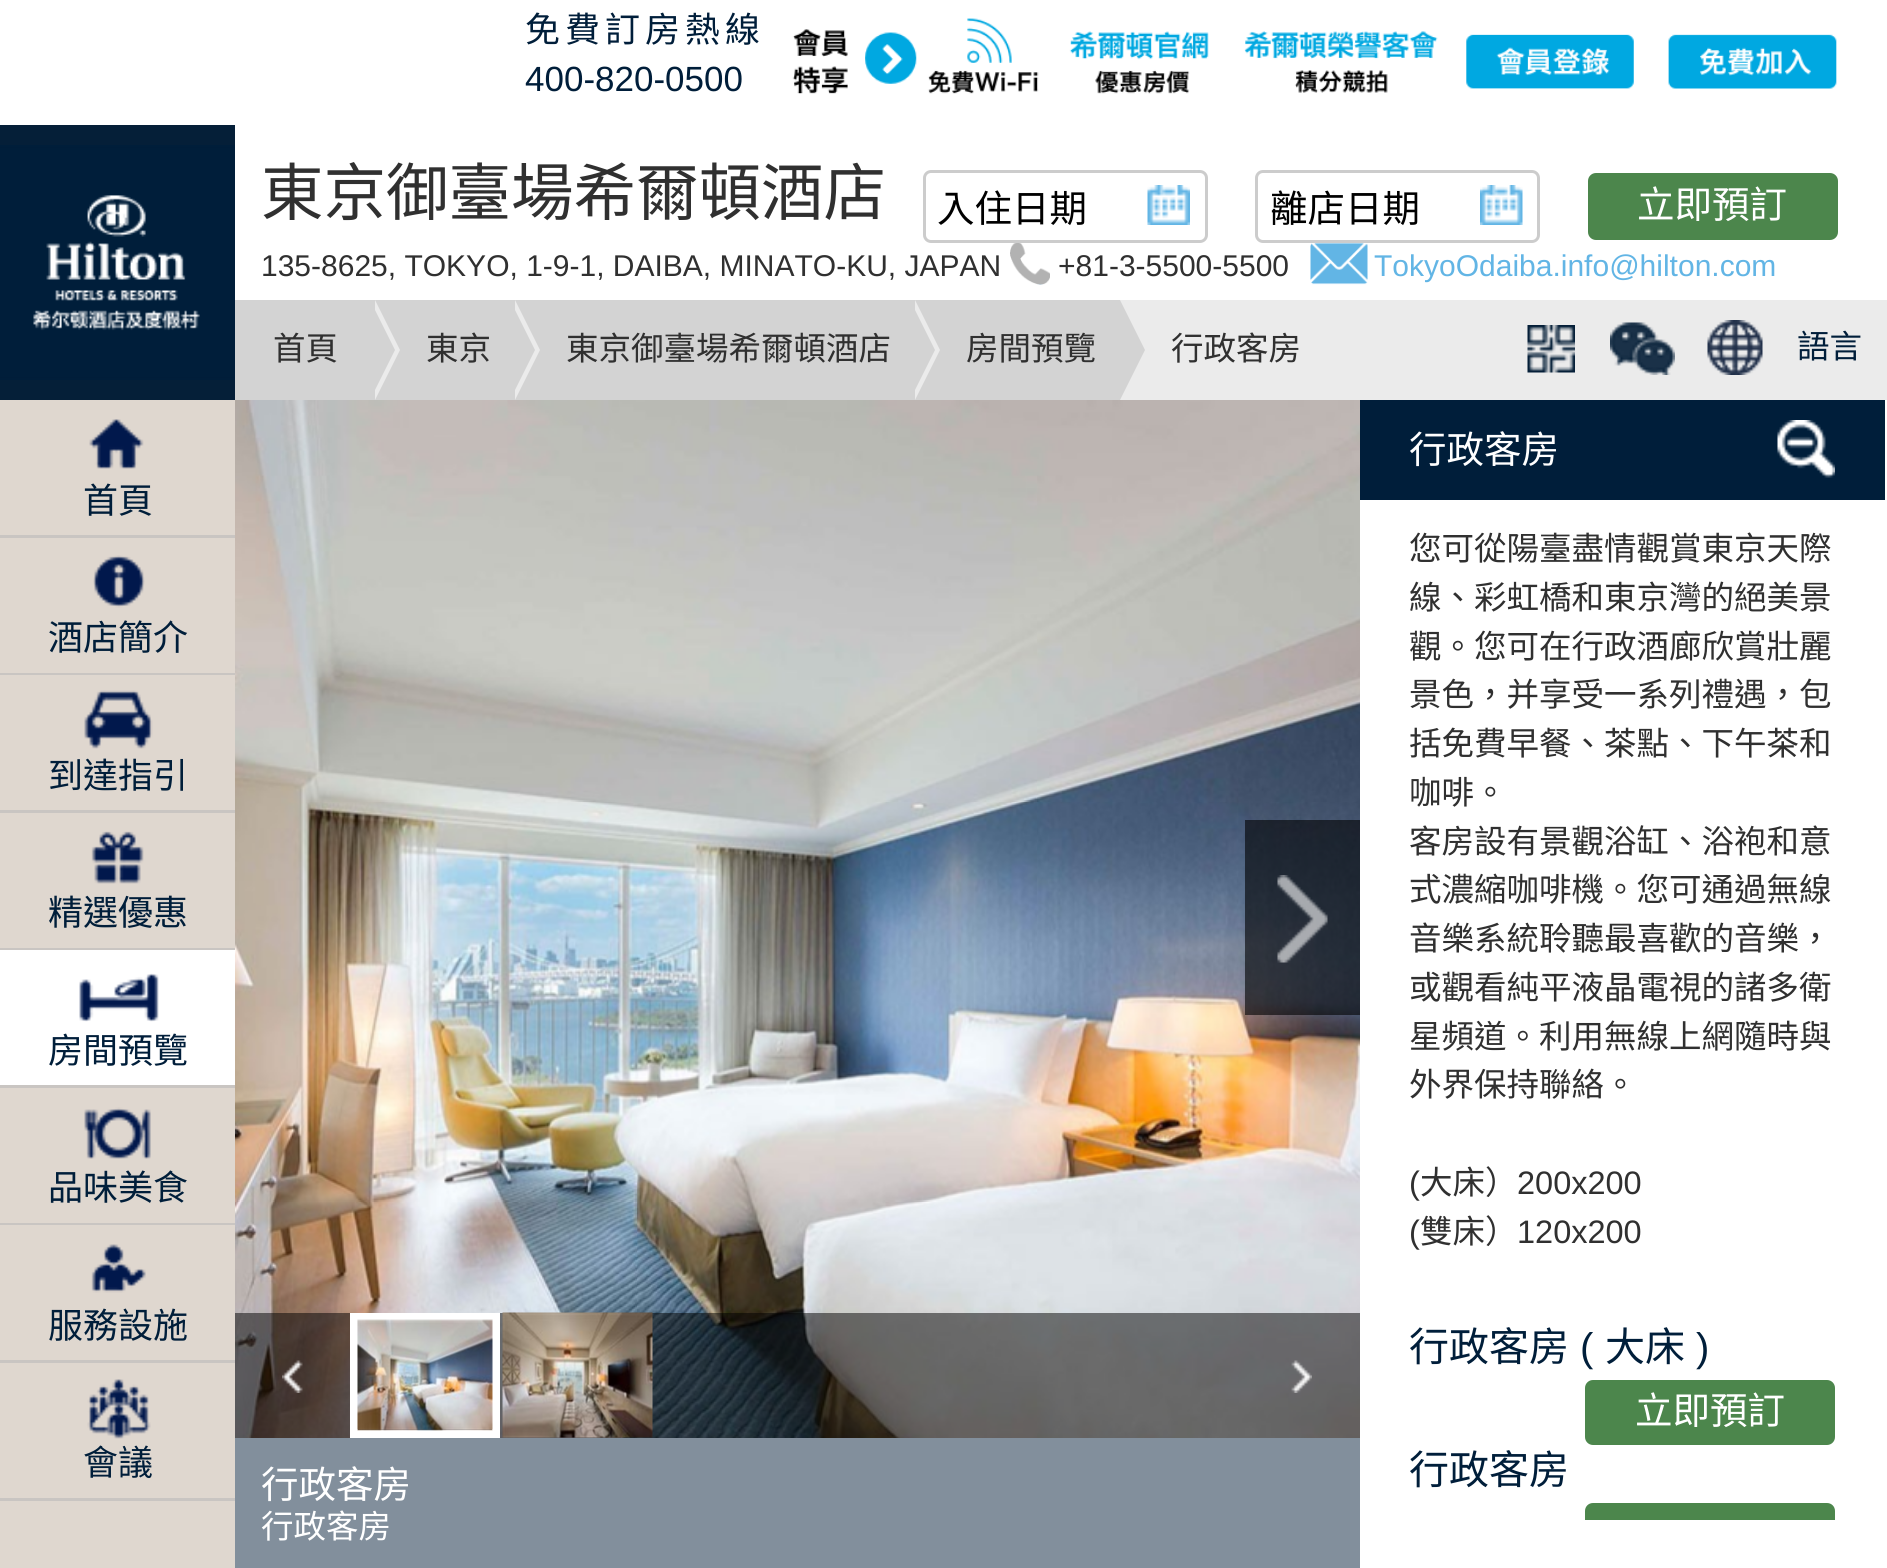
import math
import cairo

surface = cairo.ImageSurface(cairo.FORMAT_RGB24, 1887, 1568)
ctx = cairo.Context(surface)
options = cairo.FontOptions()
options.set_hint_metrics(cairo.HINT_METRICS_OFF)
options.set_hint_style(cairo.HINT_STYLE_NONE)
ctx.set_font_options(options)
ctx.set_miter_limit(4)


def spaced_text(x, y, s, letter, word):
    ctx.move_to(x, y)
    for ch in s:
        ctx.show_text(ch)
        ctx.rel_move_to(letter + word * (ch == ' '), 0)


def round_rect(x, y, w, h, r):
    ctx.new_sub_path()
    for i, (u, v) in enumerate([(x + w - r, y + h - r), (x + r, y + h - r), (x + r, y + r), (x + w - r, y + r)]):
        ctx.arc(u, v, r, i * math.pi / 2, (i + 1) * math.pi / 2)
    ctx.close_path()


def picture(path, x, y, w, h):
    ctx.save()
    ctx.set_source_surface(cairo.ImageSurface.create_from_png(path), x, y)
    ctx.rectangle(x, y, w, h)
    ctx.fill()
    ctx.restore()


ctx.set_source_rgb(1, 1, 1)
ctx.paint()
ctx.select_font_face("Noto Sans CJK HK")
ctx.set_font_size(35)
ctx.set_source_rgb(0, 0.118, 0.227)
spaced_text(525, 42, "免費訂房熱線", 5, 0)
ctx.select_font_face("Liberation Sans")
ctx.move_to(525, 91)
ctx.show_text("400-820-0500")
picture("img1.png", 792, 18, 417, 76)
picture("img2.png", 1244, 31, 194, 62)
picture("img3.png", 1466, 34, 168, 55)
picture("img4.png", 1668, 34, 169, 55)
ctx.set_source_rgb(0.02, 0.122, 0.22)
ctx.rectangle(0, 125, 235, 275)
ctx.fill()
picture("img5.png", 0, 145, 235, 235)
ctx.select_font_face("Noto Sans CJK HK")
ctx.set_font_size(62.5)
ctx.set_source_rgb(0.188, 0.188, 0.188)
ctx.move_to(261, 215)
ctx.show_text("東京御臺場希爾頓酒店")
ctx.select_font_face("Liberation Sans")
ctx.set_font_size(30)
ctx.move_to(261, 276)
ctx.show_text("135-8625, TOKYO, 1-9-1, DAIBA, MINATO-KU, JAPAN")
picture("img6.png", 1010, 243, 40, 42)
ctx.move_to(1058, 276)
ctx.show_text("+81-3-5500-5500")
picture("img7.png", 1310, 243, 58, 42)
ctx.set_source_rgb(0.384, 0.71, 0.898)
ctx.move_to(1374, 276)
ctx.show_text("TokyoOdaiba.info@hilton.com")
round_rect(924.5, 171.5, 282, 70, 6.5)
ctx.set_source_rgb(0.8, 0.8, 0.8)
ctx.set_line_width(3)
ctx.stroke()
ctx.select_font_face("Noto Sans CJK HK")
ctx.set_font_size(37.5)
ctx.set_source_rgb(0, 0, 0)
ctx.move_to(937, 222)
ctx.show_text("入住日期")
picture("img8.png", 1147, 185, 43, 40)
round_rect(1256.5, 171.5, 282, 70, 6.5)
ctx.set_source_rgb(0.8, 0.8, 0.8)
ctx.stroke()
ctx.set_source_rgb(0, 0, 0)
ctx.move_to(1270, 222)
ctx.show_text("離店日期")
picture("img9.png", 1480, 185, 43, 40)
ctx.set_source_rgb(0.298, 0.525, 0.298)
round_rect(1588, 173, 250, 67, 8)
ctx.fill()
ctx.set_source_rgb(1, 1, 1)
ctx.move_to(1637, 218)
ctx.show_text("立即預訂")
ctx.set_source_rgb(0.918, 0.918, 0.918)
ctx.rectangle(1120, 300, 767, 100)
ctx.fill()
ctx.set_source_rgb(0.827, 0.827, 0.827)
ctx.rectangle(235, 300, 885, 100)
ctx.fill()
ctx.set_source_rgb(0.918, 0.918, 0.918)
ctx.new_path()
ctx.move_to(375, 400)
ctx.line_to(375, 300)
ctx.line_to(400, 350)
ctx.close_path()
ctx.fill()
ctx.set_source_rgb(0.827, 0.827, 0.827)
ctx.new_path()
ctx.move_to(370, 400)
ctx.line_to(370, 300)
ctx.line_to(395, 350)
ctx.close_path()
ctx.fill()
ctx.set_font_size(32.5)
ctx.set_source_rgb(0.188, 0.188, 0.188)
ctx.move_to(273, 360)
ctx.show_text("首頁")
ctx.set_source_rgb(0.918, 0.918, 0.918)
ctx.new_path()
ctx.move_to(515, 400)
ctx.line_to(515, 300)
ctx.line_to(540, 350)
ctx.close_path()
ctx.fill()
ctx.set_source_rgb(0.827, 0.827, 0.827)
ctx.new_path()
ctx.move_to(510, 400)
ctx.line_to(510, 300)
ctx.line_to(535, 350)
ctx.close_path()
ctx.fill()
ctx.set_source_rgb(0.188, 0.188, 0.188)
ctx.move_to(426, 360)
ctx.show_text("東京")
ctx.set_source_rgb(0.918, 0.918, 0.918)
ctx.new_path()
ctx.move_to(915, 400)
ctx.line_to(915, 300)
ctx.line_to(940, 350)
ctx.close_path()
ctx.fill()
ctx.set_source_rgb(0.827, 0.827, 0.827)
ctx.new_path()
ctx.move_to(910, 400)
ctx.line_to(910, 300)
ctx.line_to(935, 350)
ctx.close_path()
ctx.fill()
ctx.set_source_rgb(0.188, 0.188, 0.188)
ctx.move_to(566, 360)
ctx.show_text("東京御臺場希爾頓酒店")
ctx.move_to(966, 360)
ctx.show_text("房間預覽")
ctx.set_source_rgb(0.827, 0.827, 0.827)
ctx.new_path()
ctx.move_to(1120, 400)
ctx.line_to(1120, 300)
ctx.line_to(1145, 350)
ctx.close_path()
ctx.fill()
ctx.set_source_rgb(0.188, 0.188, 0.188)
ctx.move_to(1171, 360)
ctx.show_text("行政客房")
picture("img10.png", 1527, 325, 48, 48)
picture("img11.png", 1610, 322, 65, 53)
picture("img12.png", 1707, 320, 56, 55)
ctx.set_source_rgb(0, 0.118, 0.227)
ctx.move_to(1797, 358)
ctx.show_text("語言")
ctx.set_source_rgb(0.875, 0.843, 0.812)
ctx.rectangle(0, 400, 235, 1168)
ctx.fill()
ctx.set_source_rgb(0.788, 0.773, 0.761)
ctx.rectangle(0, 535, 235, 3)
ctx.fill()
picture("img13.png", 89, 419, 55, 50)
ctx.set_font_size(35)
ctx.set_source_rgb(0, 0.118, 0.227)
ctx.move_to(83, 513)
ctx.show_text("首頁")
ctx.set_source_rgb(0.788, 0.773, 0.761)
ctx.rectangle(0, 673, 235, 2)
ctx.fill()
picture("img14.png", 93, 555, 52, 53)
ctx.set_source_rgb(0, 0.118, 0.227)
ctx.move_to(48, 650)
ctx.show_text("酒店簡介")
ctx.set_source_rgb(0.788, 0.773, 0.761)
ctx.rectangle(0, 810, 235, 3)
ctx.fill()
picture("img15.png", 84, 690, 69, 59)
ctx.set_source_rgb(0, 0.118, 0.227)
ctx.move_to(48, 788)
ctx.show_text("到達指引")
ctx.set_source_rgb(0.788, 0.773, 0.761)
ctx.rectangle(0, 948, 235, 2)
ctx.fill()
picture("img16.png", 91, 831, 53, 53)
ctx.set_source_rgb(0, 0.118, 0.227)
ctx.move_to(48, 925)
ctx.show_text("精選優惠")
ctx.set_source_rgb(0.788, 0.773, 0.761)
ctx.rectangle(0, 1085, 235, 3)
ctx.fill()
ctx.set_source_rgb(1, 1, 1)
ctx.rectangle(0, 950, 235, 135)
ctx.fill()
picture("img17.png", 79, 973, 80, 49)
ctx.set_source_rgb(0, 0.118, 0.227)
ctx.move_to(48, 1063)
ctx.show_text("房間預覽")
ctx.set_source_rgb(0.788, 0.773, 0.761)
ctx.rectangle(0, 1223, 235, 2)
ctx.fill()
picture("img18.png", 84, 1107, 67, 52)
ctx.set_source_rgb(0, 0.118, 0.227)
ctx.move_to(48, 1200)
ctx.show_text("品味美食")
ctx.set_source_rgb(0.788, 0.773, 0.761)
ctx.rectangle(0, 1360, 235, 3)
ctx.fill()
picture("img19.png", 91, 1244, 55, 49)
ctx.set_source_rgb(0, 0.118, 0.227)
ctx.move_to(48, 1338)
ctx.show_text("服務設施")
ctx.set_source_rgb(0.788, 0.773, 0.761)
ctx.rectangle(0, 1498, 235, 3)
ctx.fill()
picture("img20.png", 87, 1379, 64, 60)
ctx.set_source_rgb(0, 0.118, 0.227)
ctx.move_to(83, 1475)
ctx.show_text("會議")
ctx.rectangle(1360, 400, 525, 100)
ctx.fill()
ctx.set_font_size(37.5)
ctx.set_source_rgb(1, 1, 1)
ctx.move_to(1409, 463)
ctx.show_text("行政客房")
picture("img21.png", 1777, 420, 58, 58)
ctx.set_font_size(32.5)
ctx.set_source_rgb(0.188, 0.188, 0.188)
ctx.move_to(1409, 560)
ctx.show_text("您可從陽臺盡情觀賞東京天際")
ctx.move_to(1409, 609)
ctx.show_text("線、彩虹橋和東京灣的絕美景")
ctx.move_to(1409, 658)
ctx.show_text("觀。您可在行政酒廊欣賞壯麗")
ctx.move_to(1409, 706)
ctx.show_text("景色，并享受一系列禮遇，包")
ctx.move_to(1409, 755)
ctx.show_text("括免費早餐、茶點、下午茶和")
ctx.move_to(1409, 804)
ctx.show_text("咖啡。")
ctx.move_to(1409, 853)
ctx.show_text("客房設有景觀浴缸、浴袍和意")
ctx.move_to(1409, 901)
ctx.show_text("式濃縮咖啡機。您可通過無線")
ctx.move_to(1409, 950)
ctx.show_text("音樂系統聆聽最喜歡的音樂，")
ctx.move_to(1409, 999)
ctx.show_text("或觀看純平液晶電視的諸多衛")
ctx.move_to(1409, 1048)
ctx.show_text("星頻道。利用無線上網隨時與")
ctx.move_to(1409, 1096)
ctx.show_text("外界保持聯絡。")
ctx.select_font_face("Liberation Sans")
ctx.move_to(1409, 1194)
ctx.show_text("(")
ctx.select_font_face("Noto Sans CJK HK")
ctx.move_to(1420, 1194)
ctx.show_text("大床）")
ctx.select_font_face("Liberation Sans")
ctx.move_to(1517, 1194)
ctx.show_text("200x200")
ctx.move_to(1409, 1243)
ctx.show_text("(")
ctx.select_font_face("Noto Sans CJK HK")
ctx.move_to(1420, 1243)
ctx.show_text("雙床）")
ctx.select_font_face("Liberation Sans")
ctx.move_to(1517, 1243)
ctx.show_text("120x200")
ctx.select_font_face("Noto Sans CJK HK")
ctx.set_font_size(40)
ctx.set_source_rgb(0, 0.118, 0.227)
ctx.move_to(1409, 1361)
ctx.show_text("行政客房")
ctx.select_font_face("Liberation Sans")
ctx.move_to(1580, 1361)
ctx.show_text("(")
ctx.select_font_face("Noto Sans CJK HK")
ctx.move_to(1605, 1361)
ctx.show_text("大床")
ctx.select_font_face("Liberation Sans")
ctx.move_to(1696, 1361)
ctx.show_text(")")
ctx.set_source_rgb(0.298, 0.525, 0.298)
round_rect(1585, 1380, 250, 65, 8)
ctx.fill()
ctx.select_font_face("Noto Sans CJK HK")
ctx.set_font_size(37.5)
ctx.set_source_rgb(1, 1, 1)
ctx.move_to(1635, 1424)
ctx.show_text("立即預訂")
ctx.set_font_size(40)
ctx.set_source_rgb(0, 0.118, 0.227)
ctx.move_to(1409, 1484)
ctx.show_text("行政客房")
ctx.set_source_rgb(0.298, 0.525, 0.298)
ctx.new_path()
ctx.move_to(1593, 1503)
ctx.line_to(1827, 1503)
ctx.curve_to(1831.5, 1503, 1835, 1506.5, 1835, 1511)
ctx.line_to(1835, 1520)
ctx.line_to(1585, 1520)
ctx.line_to(1585, 1511)
ctx.curve_to(1585, 1506.5, 1588.5, 1503, 1593, 1503)
ctx.close_path()
ctx.fill()
picture("img27.png", 235, 400, 1125, 1038)
ctx.set_source_rgba(0, 0, 0, 0.6)
ctx.rectangle(1245, 820, 115, 195)
ctx.fill()
picture("img22.png", 1277, 875, 51, 88)
ctx.set_source_rgba(0, 0, 0, 0.5)
ctx.rectangle(235, 1313, 1125, 125)
ctx.fill()
picture("img23.png", 282, 1360, 21, 33)
ctx.rectangle(354, 1317, 142, 117)
ctx.set_source_rgb(1, 1, 1)
ctx.set_line_width(8)
ctx.stroke()
picture("img24.png", 357, 1319, 136, 112)
picture("img25.png", 502, 1312, 151, 126)
picture("img26.png", 1291, 1360, 21, 33)
ctx.set_source_rgb(0.51, 0.561, 0.612)
ctx.rectangle(235, 1438, 1125, 130)
ctx.fill()
ctx.set_font_size(37.5)
ctx.set_source_rgb(1, 1, 1)
ctx.move_to(261, 1498)
ctx.show_text("行政客房")
ctx.set_font_size(32.5)
ctx.move_to(261, 1538)
ctx.show_text("行政客房")
surface.write_to_png("page.png")
